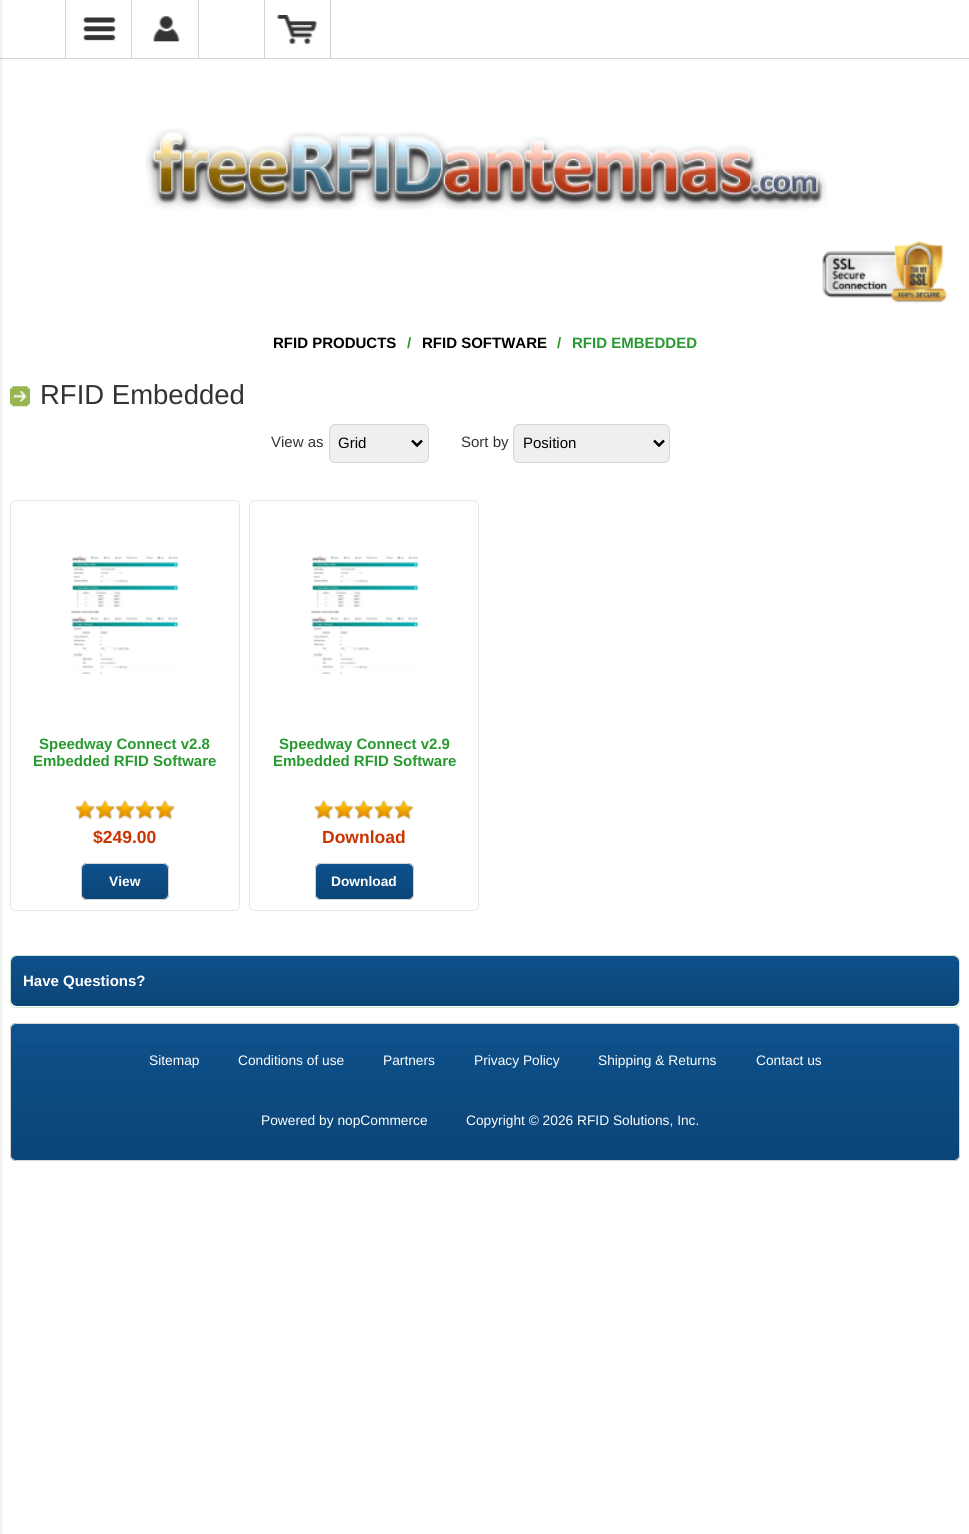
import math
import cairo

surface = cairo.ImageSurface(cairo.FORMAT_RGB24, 969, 1534)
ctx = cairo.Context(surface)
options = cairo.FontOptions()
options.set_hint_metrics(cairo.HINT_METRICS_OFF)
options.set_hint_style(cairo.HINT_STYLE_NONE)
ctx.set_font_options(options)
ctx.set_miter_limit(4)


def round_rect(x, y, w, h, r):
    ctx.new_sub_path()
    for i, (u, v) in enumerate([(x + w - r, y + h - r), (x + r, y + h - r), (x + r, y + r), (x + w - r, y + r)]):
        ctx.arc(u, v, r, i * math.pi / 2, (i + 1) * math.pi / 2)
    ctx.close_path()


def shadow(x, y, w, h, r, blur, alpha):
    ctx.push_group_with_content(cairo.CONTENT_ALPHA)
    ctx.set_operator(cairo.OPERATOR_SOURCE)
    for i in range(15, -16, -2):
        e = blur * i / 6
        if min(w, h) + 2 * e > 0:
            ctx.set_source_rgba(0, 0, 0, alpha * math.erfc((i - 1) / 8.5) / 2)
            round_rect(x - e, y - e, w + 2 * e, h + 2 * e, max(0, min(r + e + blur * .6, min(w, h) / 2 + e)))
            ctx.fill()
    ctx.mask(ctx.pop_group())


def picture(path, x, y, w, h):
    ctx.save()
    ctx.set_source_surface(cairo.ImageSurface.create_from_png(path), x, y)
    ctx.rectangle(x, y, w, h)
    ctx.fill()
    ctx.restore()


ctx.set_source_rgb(1, 1, 1)
ctx.paint()
ctx.set_source_rgb(0.827, 0.827, 0.827)
ctx.rectangle(0, 58, 969, 1)
ctx.fill()
ctx.rectangle(65, 0, 1, 58)
ctx.fill()
ctx.rectangle(131, 0, 1, 58)
ctx.fill()
picture("img1.png", 83, 17, 33, 24)
ctx.rectangle(198, 0, 1, 58)
ctx.fill()
picture("img2.png", 153, 16, 27, 26)
ctx.rectangle(264, 0, 1, 58)
ctx.fill()
ctx.rectangle(330, 0, 1, 58)
ctx.fill()
picture("img3.png", 276, 15, 41, 29)
ctx.set_source_rgb(0, 0, 0)
shadow(-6, 0, 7, 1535, 0, 2, 0.1)
picture("img4.png", 145, 128, 682, 82)
picture("img5.png", 822, 241, 125, 62)
ctx.select_font_face("Liberation Sans", cairo.FONT_SLANT_NORMAL, cairo.FONT_WEIGHT_BOLD)
ctx.set_font_size(15)
ctx.set_source_rgb(0, 0, 0)
ctx.move_to(273, 348)
ctx.show_text("RFID PRODUCTS")
ctx.set_source_rgb(0.149, 0.6, 0.184)
ctx.move_to(407, 348)
ctx.show_text("/")
ctx.set_source_rgb(0, 0, 0)
ctx.move_to(422, 348)
ctx.show_text("RFID SOFTWARE")
ctx.set_source_rgb(0.149, 0.6, 0.184)
ctx.move_to(557, 348)
ctx.show_text("/")
ctx.move_to(572, 348)
ctx.show_text("RFID EMBEDDED")
picture("img6.png", 10, 386, 20, 21)
ctx.select_font_face("Liberation Sans")
ctx.set_font_size(27.5)
ctx.set_source_rgb(0.2, 0.2, 0.2)
ctx.move_to(40, 404)
ctx.show_text("RFID Embedded")
ctx.set_font_size(15)
ctx.move_to(271, 447)
ctx.show_text("View as")
ctx.set_source_rgb(0.937, 0.937, 0.937)
round_rect(329.5, 424.5, 99, 38, 5.5)
ctx.fill_preserve()
ctx.set_source_rgb(0.839, 0.839, 0.839)
ctx.set_line_width(1)
ctx.stroke()
ctx.new_path()
ctx.move_to(412, 440.5)
ctx.line_to(417, 445.5)
ctx.line_to(422, 440.5)
ctx.set_source_rgb(0, 0, 0)
ctx.set_line_width(2.5)
ctx.stroke()
ctx.move_to(338, 448)
ctx.show_text("Grid")
ctx.set_source_rgb(0.2, 0.2, 0.2)
ctx.move_to(461, 447)
ctx.show_text("Sort by")
ctx.set_source_rgb(0.937, 0.937, 0.937)
round_rect(513.5, 424.5, 156, 38, 5.5)
ctx.fill_preserve()
ctx.set_source_rgb(0.839, 0.839, 0.839)
ctx.set_line_width(1)
ctx.stroke()
ctx.new_path()
ctx.move_to(654, 440.5)
ctx.line_to(659, 445.5)
ctx.line_to(664, 440.5)
ctx.set_source_rgb(0, 0, 0)
ctx.set_line_width(2.5)
ctx.stroke()
ctx.move_to(523, 448)
ctx.show_text("Position")
round_rect(10.5, 500.5, 229, 410, 5.5)
ctx.set_source_rgb(0.902, 0.902, 0.902)
ctx.set_line_width(1)
ctx.stroke()
picture("img7.png", 71, 555, 108, 119)
ctx.select_font_face("Liberation Sans", cairo.FONT_SLANT_NORMAL, cairo.FONT_WEIGHT_BOLD)
ctx.set_source_rgb(0.149, 0.6, 0.184)
ctx.move_to(39, 749)
ctx.show_text("Speedway Connect v2.8")
ctx.move_to(33, 766)
ctx.show_text("Embedded RFID Software")
picture("img8.png", 75, 800, 100, 19)
picture("img9.png", 75, 800, 100, 19)
ctx.set_font_size(17.5)
ctx.set_source_rgb(0.8, 0.2, 0)
ctx.move_to(93, 843)
ctx.show_text("$249.00")
ctx.set_source_rgb(0.055, 0.318, 0.549)
round_rect(81, 863, 88, 37, 6)
ctx.fill()
ctx.save()
round_rect(81, 863, 88, 37, 6)
ctx.clip()
gradient = cairo.LinearGradient(125, 864, 125, 899)
gradient.add_color_stop_rgba(0, 0, 0, 0, 0)
gradient.add_color_stop_rgba(1, 0, 0, 0, 0.15)
ctx.set_source(gradient)
ctx.rectangle(81, 869, 88, 30)
ctx.fill()
ctx.restore()
round_rect(81.5, 863.5, 87, 36, 5.5)
ctx.set_source_rgb(0.835, 0.835, 0.835)
ctx.stroke()
ctx.set_font_size(13.75)
ctx.set_source_rgb(1, 1, 1)
ctx.move_to(109, 886)
ctx.show_text("View")
round_rect(249.5, 500.5, 229, 410, 5.5)
ctx.set_source_rgb(0.902, 0.902, 0.902)
ctx.stroke()
picture("img7.png", 311, 555, 108, 119)
ctx.set_font_size(15)
ctx.set_source_rgb(0.149, 0.6, 0.184)
ctx.move_to(279, 749)
ctx.show_text("Speedway Connect v2.9")
ctx.move_to(273, 766)
ctx.show_text("Embedded RFID Software")
picture("img10.png", 314, 800, 100, 19)
picture("img11.png", 314, 800, 100, 19)
ctx.set_font_size(17.5)
ctx.set_source_rgb(0.8, 0.2, 0)
ctx.move_to(322, 843)
ctx.show_text("Download")
ctx.set_source_rgb(0.055, 0.318, 0.549)
round_rect(315, 863, 99, 37, 6)
ctx.fill()
ctx.save()
round_rect(315, 863, 99, 37, 6)
ctx.clip()
gradient = cairo.LinearGradient(364, 864, 364, 899)
gradient.add_color_stop_rgba(0, 0, 0, 0, 0)
gradient.add_color_stop_rgba(1, 0, 0, 0, 0.15)
ctx.set_source(gradient)
ctx.rectangle(315, 869, 99, 30)
ctx.fill()
ctx.restore()
round_rect(315.5, 863.5, 98, 36, 5.5)
ctx.set_source_rgb(0.835, 0.835, 0.835)
ctx.stroke()
ctx.set_font_size(13.75)
ctx.set_source_rgb(1, 1, 1)
ctx.move_to(331, 886)
ctx.show_text("Download")
round_rect(10.5, 955.5, 949, 52, 5.5)
ctx.set_source_rgb(0.804, 0.906, 0.812)
ctx.stroke()
ctx.set_source_rgb(0.055, 0.318, 0.549)
round_rect(11, 956, 948, 50, 6)
ctx.fill()
gradient = cairo.LinearGradient(485, 956, 485, 1006)
gradient.add_color_stop_rgba(0, 0, 0, 0, 0)
gradient.add_color_stop_rgba(1, 0, 0, 0, 0.15)
ctx.set_source(gradient)
round_rect(11, 956, 948, 50, 6)
ctx.fill()
ctx.set_font_size(15)
ctx.set_source_rgb(1, 1, 1)
ctx.move_to(23, 986)
ctx.show_text("Have Questions?")
ctx.set_source_rgb(0.055, 0.318, 0.549)
round_rect(10, 1023, 950, 138, 6)
ctx.fill()
ctx.save()
round_rect(10, 1023, 950, 138, 6)
ctx.clip()
gradient = cairo.LinearGradient(485, 1024, 485, 1160)
gradient.add_color_stop_rgba(0, 0, 0, 0, 0)
gradient.add_color_stop_rgba(1, 0, 0, 0, 0.15)
ctx.set_source(gradient)
ctx.rectangle(10, 1044, 950, 116)
ctx.fill()
ctx.restore()
round_rect(10.5, 1023.5, 949, 137, 5.5)
ctx.set_source_rgb(0.839, 0.839, 0.839)
ctx.stroke()
ctx.select_font_face("Liberation Sans")
ctx.set_font_size(13.75)
ctx.set_source_rgb(1, 1, 1)
ctx.move_to(149, 1065)
ctx.show_text("Sitemap")
ctx.move_to(238, 1065)
ctx.show_text("Conditions of use")
ctx.move_to(383, 1065)
ctx.show_text("Partners")
ctx.move_to(474, 1065)
ctx.show_text("Privacy Policy")
ctx.move_to(598, 1065)
ctx.show_text("Shipping & Returns")
ctx.move_to(756, 1065)
ctx.show_text("Contact us")
ctx.move_to(261, 1125)
ctx.show_text("Powered by nopCommerce")
ctx.move_to(466, 1125)
ctx.show_text("Copyright © 2026 RFID Solutions, Inc.")
surface.write_to_png("page.png")
